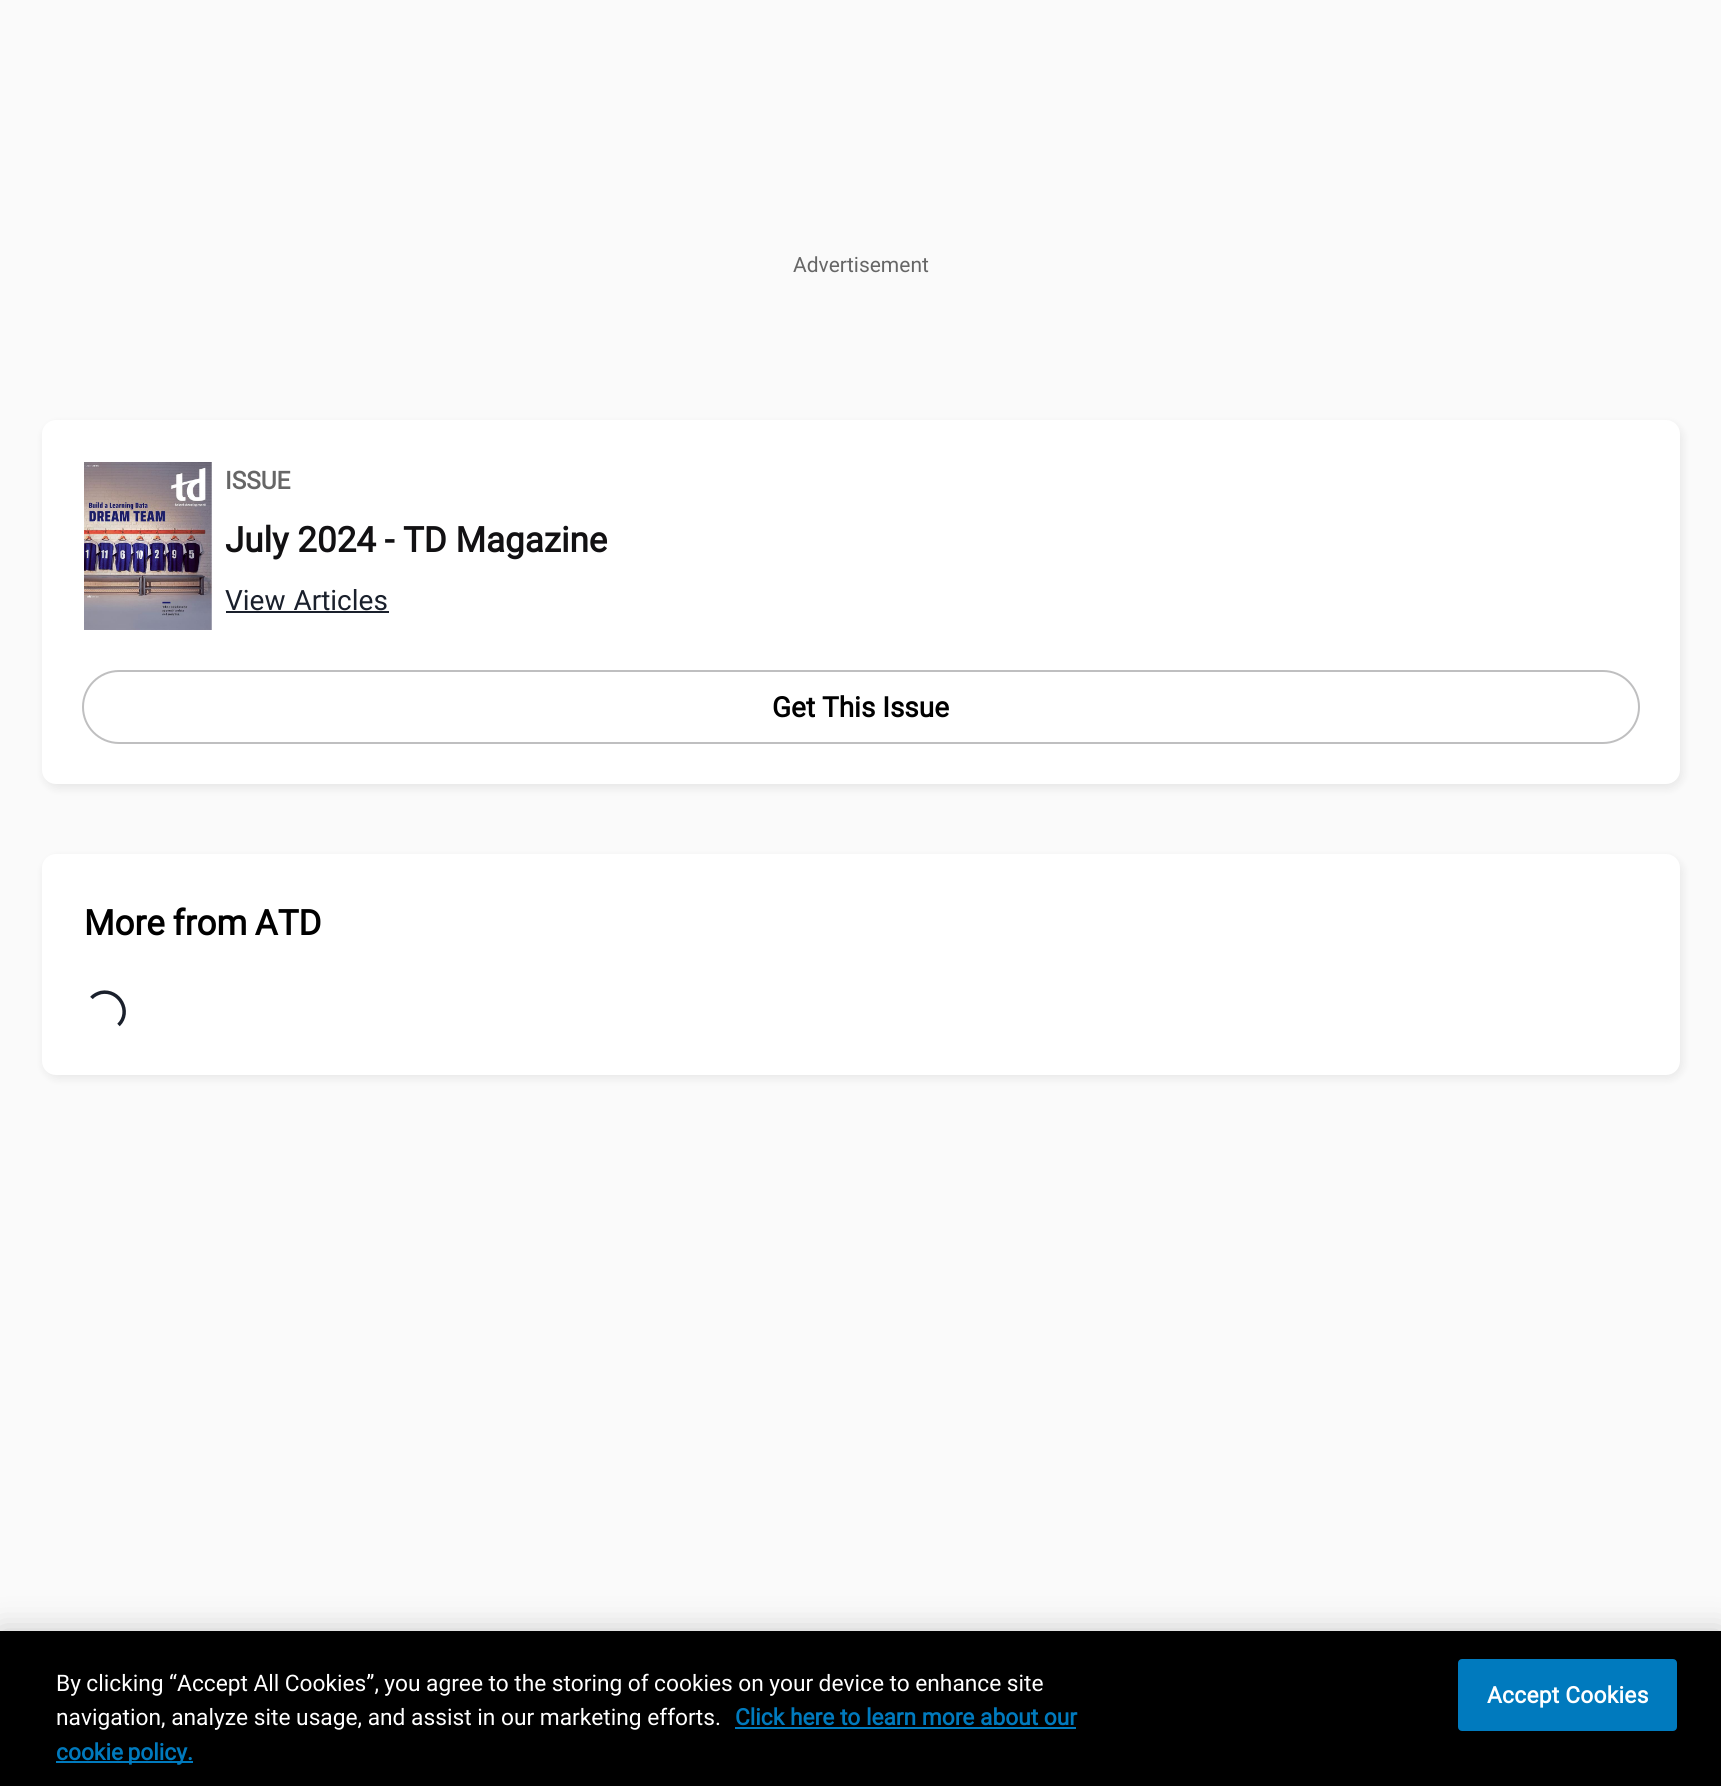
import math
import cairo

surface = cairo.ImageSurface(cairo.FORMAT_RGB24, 1721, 1786)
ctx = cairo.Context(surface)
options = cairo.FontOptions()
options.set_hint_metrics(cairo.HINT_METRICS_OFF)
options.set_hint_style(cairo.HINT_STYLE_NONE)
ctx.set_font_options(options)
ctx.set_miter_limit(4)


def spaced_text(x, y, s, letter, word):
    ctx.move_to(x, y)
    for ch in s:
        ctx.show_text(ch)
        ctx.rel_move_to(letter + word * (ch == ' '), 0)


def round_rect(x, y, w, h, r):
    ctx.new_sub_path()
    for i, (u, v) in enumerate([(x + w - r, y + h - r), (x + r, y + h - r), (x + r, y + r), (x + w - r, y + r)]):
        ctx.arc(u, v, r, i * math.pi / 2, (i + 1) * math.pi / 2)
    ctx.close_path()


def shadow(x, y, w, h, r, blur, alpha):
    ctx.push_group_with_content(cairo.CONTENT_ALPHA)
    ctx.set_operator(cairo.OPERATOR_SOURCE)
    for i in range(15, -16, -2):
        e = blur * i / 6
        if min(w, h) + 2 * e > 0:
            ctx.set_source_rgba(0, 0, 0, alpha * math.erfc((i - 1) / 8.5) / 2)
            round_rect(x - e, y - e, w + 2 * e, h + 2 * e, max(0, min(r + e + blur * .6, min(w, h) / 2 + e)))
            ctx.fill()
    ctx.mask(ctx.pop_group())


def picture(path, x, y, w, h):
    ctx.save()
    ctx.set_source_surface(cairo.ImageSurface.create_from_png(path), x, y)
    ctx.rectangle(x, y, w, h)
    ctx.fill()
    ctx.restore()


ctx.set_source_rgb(0.98, 0.98, 0.98)
ctx.paint()
ctx.select_font_face("Roboto")
ctx.set_font_size(21)
ctx.set_source_rgb(0.4, 0.4, 0.4)
ctx.move_to(793, 272)
ctx.show_text("Advertisement")
ctx.set_source_rgb(0, 0, 0)
shadow(44, 424, 1638, 364, 14, 5, 0.08)
ctx.set_source_rgb(1, 1, 1)
round_rect(42, 420, 1638, 364, 14)
ctx.fill()
picture("img1.png", 84, 462, 128, 168)
ctx.select_font_face("Roboto", cairo.FONT_SLANT_NORMAL, cairo.FONT_WEIGHT_BOLD)
ctx.set_font_size(24.5)
ctx.set_source_rgb(0.4, 0.4, 0.4)
ctx.move_to(225, 489)
ctx.show_text("ISSUE")
ctx.set_font_size(35)
ctx.set_source_rgb(0.071, 0.067, 0.075)
ctx.move_to(225, 552)
ctx.show_text("July 2024 - TD Magazine")
ctx.select_font_face("Roboto")
ctx.set_font_size(28)
ctx.set_source_rgb(0.102, 0.125, 0.173)
spaced_text(225, 610, "View Articles", 0, 1)
ctx.rectangle(226, 611, 163, 2)
ctx.fill()
round_rect(83, 671, 1556, 72, 36)
ctx.set_source_rgb(0.749, 0.749, 0.753)
ctx.stroke()
ctx.select_font_face("Roboto", cairo.FONT_SLANT_NORMAL, cairo.FONT_WEIGHT_BOLD)
ctx.set_source_rgb(0, 0, 0)
ctx.move_to(772, 717)
ctx.show_text("Get This Issue")
ctx.set_source_rgb(0, 0, 0)
shadow(44, 858, 1638, 220, 14, 5, 0.08)
ctx.set_source_rgb(1, 1, 1)
round_rect(42, 854, 1638, 221, 14)
ctx.fill()
ctx.set_font_size(35)
ctx.set_source_rgb(0, 0, 0)
spaced_text(84, 935, "More from ATD", 0, -1)
ctx.new_path()
ctx.move_to(91.5, 998)
ctx.curve_to(94, 995, 97.5, 993.5, 101, 992.5)
ctx.curve_to(119.5, 989, 132, 1012, 118.5, 1025)
ctx.set_source_rgb(0.102, 0.125, 0.173)
ctx.set_line_width(3.5)
ctx.stroke()
ctx.set_source_rgb(0, 0, 0)
shadow(0, 1631, 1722, 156, 0, 16, 0.2)
ctx.set_source_rgb(0, 0, 0)
ctx.rectangle(0, 1631, 1721, 155)
ctx.fill()
ctx.select_font_face("Roboto")
ctx.set_font_size(22.75)
ctx.set_source_rgb(1, 1, 1)
spaced_text(56, 1691, "By clicking “Accept All Cookies”, you agree to the storing of cookies on your device to enhance site", 0, -0.2)
ctx.move_to(56, 1725)
ctx.show_text("navigation, analyze site usage, and assist in our marketing efforts.")
ctx.select_font_face("Roboto", cairo.FONT_SLANT_NORMAL, cairo.FONT_WEIGHT_BOLD)
ctx.set_source_rgb(0, 0.478, 0.745)
ctx.move_to(735, 1725)
ctx.show_text("Click here to learn more about our")
ctx.rectangle(735, 1727, 341, 2)
ctx.fill()
ctx.rectangle(56, 1761, 137, 2)
ctx.fill()
spaced_text(56, 1760, "cookie policy.", 0, -1)
round_rect(1459, 1660, 217, 70, 3)
ctx.fill_preserve()
ctx.set_line_width(2)
ctx.stroke()
ctx.set_source_rgb(1, 1, 1)
spaced_text(1487, 1703, "Accept Cookies", 0.25, 0)
surface.write_to_png("page.png")
